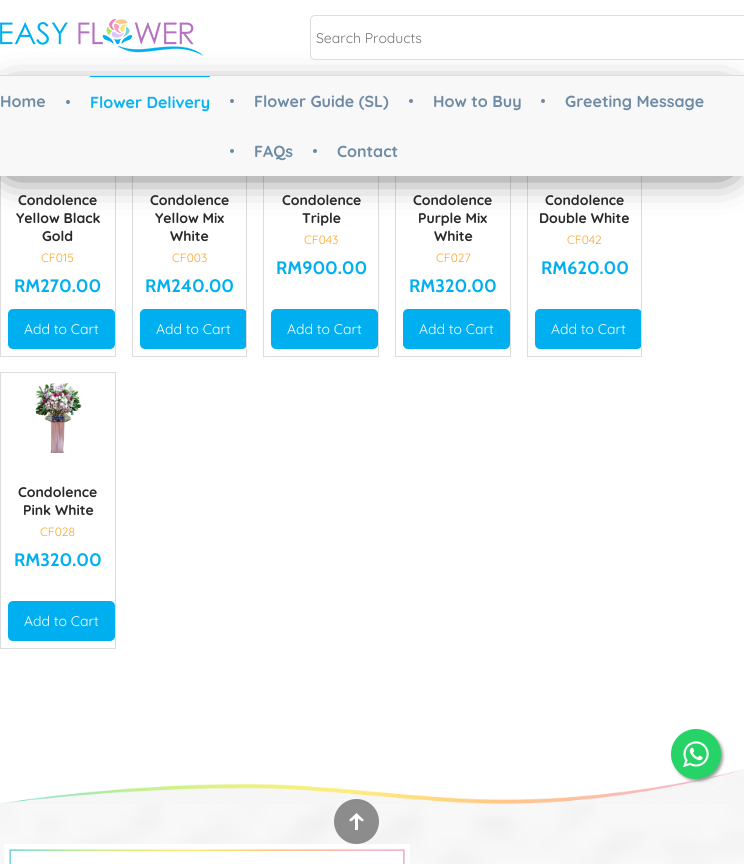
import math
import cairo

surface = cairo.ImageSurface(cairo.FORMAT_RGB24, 744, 864)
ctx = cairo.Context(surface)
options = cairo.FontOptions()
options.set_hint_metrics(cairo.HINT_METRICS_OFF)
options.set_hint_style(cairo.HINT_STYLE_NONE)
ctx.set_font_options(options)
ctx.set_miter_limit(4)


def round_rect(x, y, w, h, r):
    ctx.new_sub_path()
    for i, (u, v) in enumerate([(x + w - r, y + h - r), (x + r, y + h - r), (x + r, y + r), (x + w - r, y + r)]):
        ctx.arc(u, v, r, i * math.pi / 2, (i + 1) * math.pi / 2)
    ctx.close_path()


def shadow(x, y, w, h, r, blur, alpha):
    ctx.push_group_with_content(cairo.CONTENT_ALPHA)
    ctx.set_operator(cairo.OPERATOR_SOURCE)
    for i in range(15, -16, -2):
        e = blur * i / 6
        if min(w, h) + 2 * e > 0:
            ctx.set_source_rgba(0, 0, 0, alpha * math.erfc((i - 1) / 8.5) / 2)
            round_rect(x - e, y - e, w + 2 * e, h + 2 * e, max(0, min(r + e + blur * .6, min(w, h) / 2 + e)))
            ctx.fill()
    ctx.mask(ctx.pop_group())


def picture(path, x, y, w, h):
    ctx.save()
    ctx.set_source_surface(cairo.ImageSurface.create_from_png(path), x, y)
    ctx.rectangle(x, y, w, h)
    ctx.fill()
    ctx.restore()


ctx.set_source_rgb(1, 1, 1)
ctx.paint()
picture("img1.png", 0, 176, 744, 241)
ctx.rectangle(0.5, 80.5, 115, 276)
ctx.set_source_rgb(0.867, 0.867, 0.867)
ctx.set_line_width(1)
ctx.stroke()
ctx.rectangle(132.5, 80.5, 114, 276)
ctx.stroke()
ctx.rectangle(263.5, 80.5, 115, 276)
ctx.stroke()
ctx.rectangle(395.5, 80.5, 115, 276)
ctx.stroke()
ctx.rectangle(527.5, 80.5, 114, 276)
ctx.stroke()
ctx.set_source_rgb(0, 0, 0)
shadow(12, 101, 715, 65, 0, 20, 1)
picture("img2.png", 0, 19, 204, 37)
ctx.set_source_rgb(1, 1, 1)
round_rect(310.5, 15.5, 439, 44, 4.5)
ctx.fill_preserve()
ctx.set_source_rgb(0.867, 0.867, 0.867)
ctx.stroke()
ctx.select_font_face("Quicksand")
ctx.set_font_size(14)
ctx.set_source_rgb(0.459, 0.459, 0.459)
ctx.move_to(316, 43)
ctx.show_text("Search Products")
ctx.set_source_rgb(0.867, 0.867, 0.867)
ctx.rectangle(0, 75, 744, 1)
ctx.fill()
ctx.set_source_rgb(0.969, 0.969, 0.969)
ctx.rectangle(0, 76, 744, 100)
ctx.fill()
ctx.select_font_face("Quicksand", cairo.FONT_SLANT_NORMAL, cairo.FONT_WEIGHT_BOLD)
ctx.set_font_size(16)
ctx.set_source_rgb(0.431, 0.545, 0.647)
ctx.move_to(0, 107)
ctx.show_text("Home")
ctx.new_path()
ctx.arc(68, 102, 2, 0, 2 * math.pi)
ctx.fill()
ctx.set_source_rgb(0, 0.686, 0.941)
ctx.rectangle(90, 76, 120, 1)
ctx.fill()
ctx.set_source_rgb(0.039, 0.698, 0.941)
ctx.move_to(90, 108)
ctx.show_text("Flower Delivery")
ctx.set_source_rgb(0.431, 0.545, 0.647)
ctx.new_path()
ctx.arc(232, 101, 2, 0, 2 * math.pi)
ctx.fill()
ctx.move_to(254, 107)
ctx.show_text("Flower Guide (SL)")
ctx.new_path()
ctx.arc(411, 101, 2, 0, 2 * math.pi)
ctx.fill()
ctx.move_to(433, 107)
ctx.show_text("How to Buy")
ctx.new_path()
ctx.arc(543, 101, 2, 0, 2 * math.pi)
ctx.fill()
ctx.move_to(565, 107)
ctx.show_text("Greeting Message")
ctx.new_path()
ctx.arc(232, 151, 2, 0, 2 * math.pi)
ctx.fill()
ctx.move_to(254, 157)
ctx.show_text("FAQs")
ctx.new_path()
ctx.arc(315, 151, 2, 0, 2 * math.pi)
ctx.fill()
ctx.move_to(337, 157)
ctx.show_text("Contact")
ctx.set_font_size(14)
ctx.set_source_rgb(0.161, 0.161, 0.161)
ctx.move_to(18, 205)
ctx.show_text("Condolence")
ctx.move_to(16, 223)
ctx.show_text("Yellow Black")
ctx.move_to(42, 241)
ctx.show_text("Gold")
ctx.select_font_face("Quicksand")
ctx.set_font_size(12)
ctx.set_source_rgb(0.976, 0.647, 0.149)
ctx.move_to(41, 262)
ctx.show_text("CF015")
ctx.select_font_face("Cabin", cairo.FONT_SLANT_NORMAL, cairo.FONT_WEIGHT_BOLD)
ctx.set_font_size(18)
ctx.set_source_rgb(0, 0.686, 0.941)
ctx.move_to(14, 292)
ctx.show_text("RM270.00")
round_rect(8, 309, 107, 40, 5)
ctx.fill()
ctx.select_font_face("Quicksand")
ctx.set_font_size(14)
ctx.set_source_rgb(1, 1, 1)
ctx.move_to(24, 334)
ctx.show_text("Add to Cart")
ctx.select_font_face("Quicksand", cairo.FONT_SLANT_NORMAL, cairo.FONT_WEIGHT_BOLD)
ctx.set_source_rgb(0.161, 0.161, 0.161)
ctx.move_to(150, 205)
ctx.show_text("Condolence")
ctx.move_to(155, 223)
ctx.show_text("Yellow Mix")
ctx.move_to(170, 241)
ctx.show_text("White")
ctx.select_font_face("Quicksand")
ctx.set_font_size(12)
ctx.set_source_rgb(0.976, 0.647, 0.149)
ctx.move_to(172, 262)
ctx.show_text("CF003")
ctx.select_font_face("Cabin", cairo.FONT_SLANT_NORMAL, cairo.FONT_WEIGHT_BOLD)
ctx.set_font_size(18)
ctx.set_source_rgb(0, 0.686, 0.941)
ctx.move_to(145, 292)
ctx.show_text("RM240.00")
ctx.save()
ctx.rectangle(133, 81, 113, 275)
ctx.clip()
round_rect(140, 309, 107, 40, 5)
ctx.fill()
ctx.restore()
ctx.select_font_face("Quicksand")
ctx.set_font_size(14)
ctx.set_source_rgb(1, 1, 1)
ctx.move_to(156, 334)
ctx.show_text("Add to Cart")
ctx.select_font_face("Quicksand", cairo.FONT_SLANT_NORMAL, cairo.FONT_WEIGHT_BOLD)
ctx.set_source_rgb(0.161, 0.161, 0.161)
ctx.move_to(282, 205)
ctx.show_text("Condolence")
ctx.move_to(302, 223)
ctx.show_text("Triple")
ctx.select_font_face("Quicksand")
ctx.set_font_size(12)
ctx.set_source_rgb(0.976, 0.647, 0.149)
ctx.move_to(304, 244)
ctx.show_text("CF043")
ctx.select_font_face("Cabin", cairo.FONT_SLANT_NORMAL, cairo.FONT_WEIGHT_BOLD)
ctx.set_font_size(18)
ctx.set_source_rgb(0, 0.686, 0.941)
ctx.move_to(276, 274)
ctx.show_text("RM900.00")
round_rect(271, 309, 107, 40, 5)
ctx.fill()
ctx.select_font_face("Quicksand")
ctx.set_font_size(14)
ctx.set_source_rgb(1, 1, 1)
ctx.move_to(287, 334)
ctx.show_text("Add to Cart")
ctx.select_font_face("Quicksand", cairo.FONT_SLANT_NORMAL, cairo.FONT_WEIGHT_BOLD)
ctx.set_source_rgb(0.161, 0.161, 0.161)
ctx.move_to(413, 205)
ctx.show_text("Condolence")
ctx.move_to(418, 223)
ctx.show_text("Purple Mix")
ctx.move_to(434, 241)
ctx.show_text("White")
ctx.select_font_face("Quicksand")
ctx.set_font_size(12)
ctx.set_source_rgb(0.976, 0.647, 0.149)
ctx.move_to(436, 262)
ctx.show_text("CF027")
ctx.select_font_face("Cabin", cairo.FONT_SLANT_NORMAL, cairo.FONT_WEIGHT_BOLD)
ctx.set_font_size(18)
ctx.set_source_rgb(0, 0.686, 0.941)
ctx.move_to(409, 292)
ctx.show_text("RM320.00")
round_rect(403, 309, 107, 40, 5)
ctx.fill()
ctx.select_font_face("Quicksand")
ctx.set_font_size(14)
ctx.set_source_rgb(1, 1, 1)
ctx.move_to(419, 334)
ctx.show_text("Add to Cart")
ctx.select_font_face("Quicksand", cairo.FONT_SLANT_NORMAL, cairo.FONT_WEIGHT_BOLD)
ctx.set_source_rgb(0.161, 0.161, 0.161)
ctx.move_to(545, 205)
ctx.show_text("Condolence")
ctx.move_to(539, 223)
ctx.show_text("Double White")
ctx.select_font_face("Quicksand")
ctx.set_font_size(12)
ctx.set_source_rgb(0.976, 0.647, 0.149)
ctx.move_to(567, 244)
ctx.show_text("CF042")
ctx.select_font_face("Cabin", cairo.FONT_SLANT_NORMAL, cairo.FONT_WEIGHT_BOLD)
ctx.set_font_size(18)
ctx.set_source_rgb(0, 0.686, 0.941)
ctx.move_to(541, 274)
ctx.show_text("RM620.00")
ctx.save()
ctx.rectangle(528, 81, 113, 275)
ctx.clip()
round_rect(535, 309, 107, 40, 5)
ctx.fill()
ctx.restore()
ctx.select_font_face("Quicksand")
ctx.set_font_size(14)
ctx.set_source_rgb(1, 1, 1)
ctx.move_to(551, 334)
ctx.show_text("Add to Cart")
ctx.rectangle(0.5, 372.5, 115, 276)
ctx.set_source_rgb(0.867, 0.867, 0.867)
ctx.stroke()
picture("img3.png", 35, 383, 47, 70)
ctx.select_font_face("Quicksand", cairo.FONT_SLANT_NORMAL, cairo.FONT_WEIGHT_BOLD)
ctx.set_source_rgb(0.161, 0.161, 0.161)
ctx.move_to(18, 497)
ctx.show_text("Condolence")
ctx.move_to(23, 515)
ctx.show_text("Pink White")
ctx.select_font_face("Quicksand")
ctx.set_font_size(12)
ctx.set_source_rgb(0.976, 0.647, 0.149)
ctx.move_to(40, 536)
ctx.show_text("CF028")
ctx.select_font_face("Cabin", cairo.FONT_SLANT_NORMAL, cairo.FONT_WEIGHT_BOLD)
ctx.set_font_size(18)
ctx.set_source_rgb(0, 0.686, 0.941)
ctx.move_to(14, 566)
ctx.show_text("RM320.00")
round_rect(8, 601, 107, 40, 5)
ctx.fill()
ctx.select_font_face("Quicksand")
ctx.set_font_size(14)
ctx.set_source_rgb(1, 1, 1)
ctx.move_to(24, 626)
ctx.show_text("Add to Cart")
picture("img5.png", 0, 769, 744, 35)
ctx.set_source_rgb(0.6, 0.6, 0.6)
shadow(673, 731, 50, 50, 25, 1.5, 1)
ctx.set_source_rgb(0.145, 0.827, 0.4)
ctx.arc(696, 754, 25, 0, 2 * math.pi)
ctx.fill()
picture("img4.png", 683, 741, 26, 27)
picture("img6.png", 0, 804, 744, 60)
picture("img7.png", 4, 844, 406, 20)
picture("img8.png", 334, 799, 45, 45)
surface.write_to_png("page.png")
